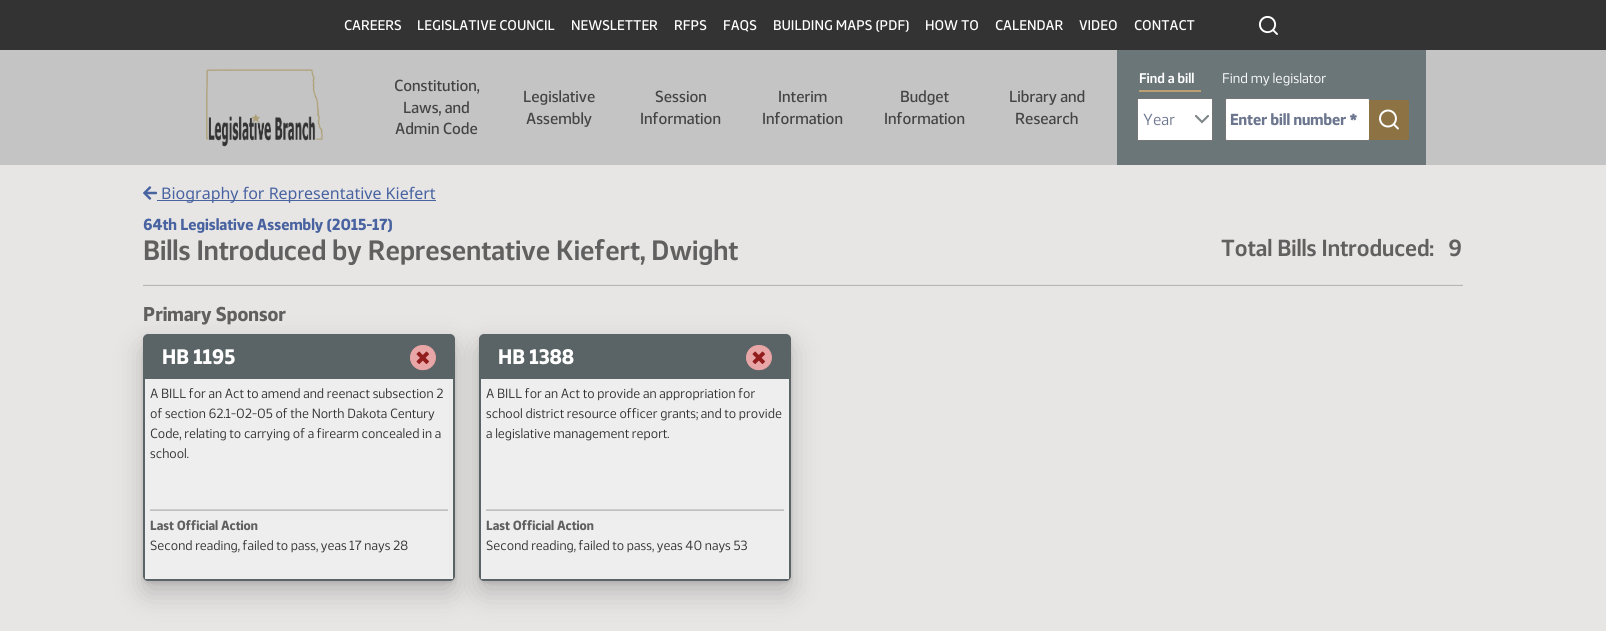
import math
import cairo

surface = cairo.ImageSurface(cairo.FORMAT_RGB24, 1606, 631)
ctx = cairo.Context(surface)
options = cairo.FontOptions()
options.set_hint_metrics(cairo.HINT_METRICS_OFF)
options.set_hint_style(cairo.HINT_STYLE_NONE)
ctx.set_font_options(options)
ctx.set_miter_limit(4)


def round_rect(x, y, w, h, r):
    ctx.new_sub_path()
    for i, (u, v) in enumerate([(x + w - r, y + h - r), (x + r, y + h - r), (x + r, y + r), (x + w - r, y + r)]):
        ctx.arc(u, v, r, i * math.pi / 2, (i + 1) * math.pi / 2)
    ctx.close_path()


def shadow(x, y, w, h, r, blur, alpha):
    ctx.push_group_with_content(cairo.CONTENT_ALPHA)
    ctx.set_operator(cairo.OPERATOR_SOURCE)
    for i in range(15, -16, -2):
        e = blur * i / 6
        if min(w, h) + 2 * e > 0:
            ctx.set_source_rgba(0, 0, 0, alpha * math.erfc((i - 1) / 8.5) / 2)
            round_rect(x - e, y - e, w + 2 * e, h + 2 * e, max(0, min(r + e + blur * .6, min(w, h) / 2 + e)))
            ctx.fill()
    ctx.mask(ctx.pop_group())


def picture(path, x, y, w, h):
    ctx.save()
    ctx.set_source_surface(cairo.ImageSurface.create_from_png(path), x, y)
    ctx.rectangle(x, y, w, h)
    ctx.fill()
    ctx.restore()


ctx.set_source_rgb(0.91, 0.902, 0.898)
ctx.paint()
ctx.set_source_rgb(0.2, 0.2, 0.2)
ctx.rectangle(0, 0, 1606, 50)
ctx.fill()
ctx.select_font_face("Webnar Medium")
ctx.set_font_size(14)
ctx.set_source_rgb(1, 1, 1)
ctx.move_to(344, 30)
ctx.show_text("CAREERS")
ctx.move_to(417, 30)
ctx.show_text("LEGISLATIVE COUNCIL")
ctx.move_to(571, 30)
ctx.show_text("NEWSLETTER")
ctx.move_to(674, 30)
ctx.show_text("RFPS")
ctx.move_to(723, 30)
ctx.show_text("FAQS")
ctx.move_to(773, 30)
ctx.show_text("BUILDING MAPS (PDF)")
ctx.move_to(925, 30)
ctx.show_text("HOW TO")
ctx.move_to(995, 30)
ctx.show_text("CALENDAR")
ctx.move_to(1079, 30)
ctx.show_text("VIDEO")
ctx.move_to(1134, 30)
ctx.show_text("CONTACT")
picture("img1.png", 1258, 15, 20, 20)
ctx.set_source_rgb(0.769, 0.769, 0.769)
ctx.rectangle(0, 50, 1606, 115)
ctx.fill()
picture("img2.png", 206, 69, 117, 78)
ctx.set_font_size(16)
ctx.set_source_rgb(0.267, 0.267, 0.267)
ctx.move_to(394, 91)
ctx.show_text("Constitution,")
ctx.move_to(403, 113)
ctx.show_text("Laws, and")
ctx.move_to(395, 134)
ctx.show_text("Admin Code")
ctx.move_to(523, 102)
ctx.show_text("Legislative")
ctx.move_to(526, 124)
ctx.show_text("Assembly")
ctx.move_to(655, 102)
ctx.show_text("Session")
ctx.move_to(640, 124)
ctx.show_text("Information")
ctx.move_to(778, 102)
ctx.show_text("Interim")
ctx.move_to(762, 124)
ctx.show_text("Information")
ctx.move_to(900, 102)
ctx.show_text("Budget")
ctx.move_to(884, 124)
ctx.show_text("Information")
ctx.move_to(1009, 102)
ctx.show_text("Library and")
ctx.move_to(1015, 124)
ctx.show_text("Research")
ctx.set_source_rgb(0.42, 0.463, 0.471)
ctx.rectangle(1117, 50, 309, 115)
ctx.fill()
ctx.set_source_rgb(0.733, 0.624, 0.451)
ctx.rectangle(1139, 90, 62, 2)
ctx.fill()
ctx.select_font_face("Webnar SemiBold")
ctx.set_font_size(14)
ctx.set_source_rgb(1, 1, 1)
ctx.move_to(1139, 83)
ctx.show_text("Find a bill")
ctx.select_font_face("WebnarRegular")
ctx.move_to(1222, 83)
ctx.show_text("Find my legislator")
ctx.rectangle(1138, 99, 74, 41)
ctx.fill()
picture("img3.png", 1195, 115, 14, 9)
ctx.rectangle(1137.5, 98.5, 75, 42)
ctx.set_source_rgb(0.463, 0.463, 0.463)
ctx.set_line_width(1)
ctx.stroke()
ctx.set_font_size(16)
ctx.set_source_rgb(0.424, 0.463, 0.561)
ctx.move_to(1143, 125)
ctx.show_text("Year")
ctx.set_source_rgb(1, 1, 1)
round_rect(1225.5, 98.5, 144, 42, 1.5)
ctx.fill_preserve()
ctx.set_source_rgb(0.463, 0.463, 0.463)
ctx.stroke()
ctx.select_font_face("Webnar", cairo.FONT_SLANT_NORMAL, cairo.FONT_WEIGHT_BOLD)
ctx.set_source_rgb(0.424, 0.463, 0.561)
ctx.move_to(1230, 125)
ctx.show_text("Enter bill number *")
picture("img4.png", 1369, 100, 40, 40)
picture("img5.png", 143, 186, 14, 14)
ctx.set_source_rgb(0.282, 0.388, 0.627)
ctx.rectangle(157, 200, 279, 1)
ctx.fill()
ctx.select_font_face("Noto Sans")
ctx.move_to(161, 199)
ctx.show_text("Biography for Representative Kiefert")
ctx.select_font_face("Webnar", cairo.FONT_SLANT_NORMAL, cairo.FONT_WEIGHT_BOLD)
ctx.move_to(143, 230)
ctx.show_text("64th Legislative Assembly (2015-17)")
ctx.select_font_face("Webnar SemiBold")
ctx.set_font_size(28)
ctx.set_source_rgb(0.376, 0.376, 0.376)
ctx.move_to(143, 260)
ctx.show_text("Bills Introduced by Representative Kiefert, Dwight")
ctx.set_font_size(23.25)
ctx.move_to(1221, 256)
ctx.show_text("Total Bills Introduced:   9")
ctx.set_source_rgb(0.714, 0.714, 0.714)
ctx.rectangle(143, 285, 1320, 1)
ctx.fill()
ctx.set_source_rgb(0.882, 0.878, 0.875)
ctx.rectangle(143, 284, 1320, 1)
ctx.fill()
ctx.select_font_face("Webnar", cairo.FONT_SLANT_NORMAL, cairo.FONT_WEIGHT_BOLD)
ctx.set_font_size(20)
ctx.set_source_rgb(0.376, 0.376, 0.376)
ctx.move_to(143, 321)
ctx.show_text("Primary Sponsor")
ctx.set_source_rgb(0, 0, 0)
shadow(143, 336, 312, 247, 5, 2, 0.1)
shadow(143, 346, 312, 247, 5, 14, 0.2)
round_rect(144, 335, 310, 245, 4)
ctx.set_source_rgb(0.353, 0.388, 0.396)
ctx.set_line_width(2)
ctx.stroke()
ctx.rectangle(145, 336, 308, 43)
ctx.fill()
ctx.set_font_size(21)
ctx.set_source_rgb(1, 1, 1)
ctx.move_to(162, 364)
ctx.show_text("HB 1195")
gradient = cairo.RadialGradient(423, 358, 0, 423, 358, 18)
gradient.add_color_stop_rgba(0.5, 0.569, 0.114, 0.114, 1)
gradient.add_color_stop_rgba(0.7, 0.91, 0.651, 0.651, 1)
ctx.set_source(gradient)
round_rect(410, 345, 26, 25, 12.5)
ctx.fill()
picture("img6.png", 410, 345, 25, 26)
ctx.set_source_rgb(0.933, 0.933, 0.933)
ctx.rectangle(145, 379, 308, 200)
ctx.fill()
ctx.select_font_face("WebnarRegular")
ctx.set_font_size(13.3)
ctx.set_source_rgb(0.2, 0.2, 0.2)
ctx.move_to(150, 398)
ctx.show_text("A BILL for an Act to amend and reenact subsection 2")
ctx.move_to(150, 418)
ctx.show_text("of section 62.1-02-05 of the North Dakota Century")
ctx.move_to(150, 438)
ctx.show_text("Code, relating to carrying of a firearm concealed in a")
ctx.move_to(150, 458)
ctx.show_text("school.")
ctx.set_source_rgb(0.749, 0.749, 0.749)
ctx.rectangle(150, 510, 298, 1)
ctx.fill()
ctx.set_source_rgb(0.804, 0.816, 0.82)
ctx.rectangle(150, 509, 298, 1)
ctx.fill()
ctx.select_font_face("Webnar", cairo.FONT_SLANT_NORMAL, cairo.FONT_WEIGHT_BOLD)
ctx.set_source_rgb(0.376, 0.376, 0.376)
ctx.move_to(150, 530)
ctx.show_text("Last Official Action")
ctx.select_font_face("WebnarRegular")
ctx.set_source_rgb(0.2, 0.2, 0.2)
ctx.move_to(150, 550)
ctx.show_text("Second reading, failed to pass, yeas 17 nays 28")
ctx.set_source_rgb(0, 0, 0)
shadow(479, 336, 312, 247, 5, 2, 0.1)
shadow(479, 346, 312, 247, 5, 14, 0.2)
round_rect(480, 335, 310, 245, 4)
ctx.set_source_rgb(0.353, 0.388, 0.396)
ctx.stroke()
ctx.rectangle(481, 336, 308, 43)
ctx.fill()
ctx.select_font_face("Webnar", cairo.FONT_SLANT_NORMAL, cairo.FONT_WEIGHT_BOLD)
ctx.set_font_size(21)
ctx.set_source_rgb(1, 1, 1)
ctx.move_to(498, 364)
ctx.show_text("HB 1388")
gradient = cairo.RadialGradient(759, 358, 0, 759, 358, 18)
gradient.add_color_stop_rgba(0.5, 0.569, 0.114, 0.114, 1)
gradient.add_color_stop_rgba(0.7, 0.91, 0.651, 0.651, 1)
ctx.set_source(gradient)
round_rect(746, 345, 26, 25, 12.5)
ctx.fill()
picture("img6.png", 746, 345, 25, 26)
ctx.set_source_rgb(0.933, 0.933, 0.933)
ctx.rectangle(481, 379, 308, 200)
ctx.fill()
ctx.select_font_face("WebnarRegular")
ctx.set_font_size(13.3)
ctx.set_source_rgb(0.2, 0.2, 0.2)
ctx.move_to(486, 398)
ctx.show_text("A BILL for an Act to provide an appropriation for")
ctx.move_to(486, 418)
ctx.show_text("school district resource officer grants; and to provide")
ctx.move_to(486, 438)
ctx.show_text("a legislative management report.")
ctx.set_source_rgb(0.749, 0.749, 0.749)
ctx.rectangle(486, 510, 298, 1)
ctx.fill()
ctx.set_source_rgb(0.804, 0.816, 0.82)
ctx.rectangle(486, 509, 298, 1)
ctx.fill()
ctx.select_font_face("Webnar", cairo.FONT_SLANT_NORMAL, cairo.FONT_WEIGHT_BOLD)
ctx.set_source_rgb(0.376, 0.376, 0.376)
ctx.move_to(486, 530)
ctx.show_text("Last Official Action")
ctx.select_font_face("WebnarRegular")
ctx.set_source_rgb(0.2, 0.2, 0.2)
ctx.move_to(486, 550)
ctx.show_text("Second reading, failed to pass, yeas 40 nays 53")
surface.write_to_png("page.png")
